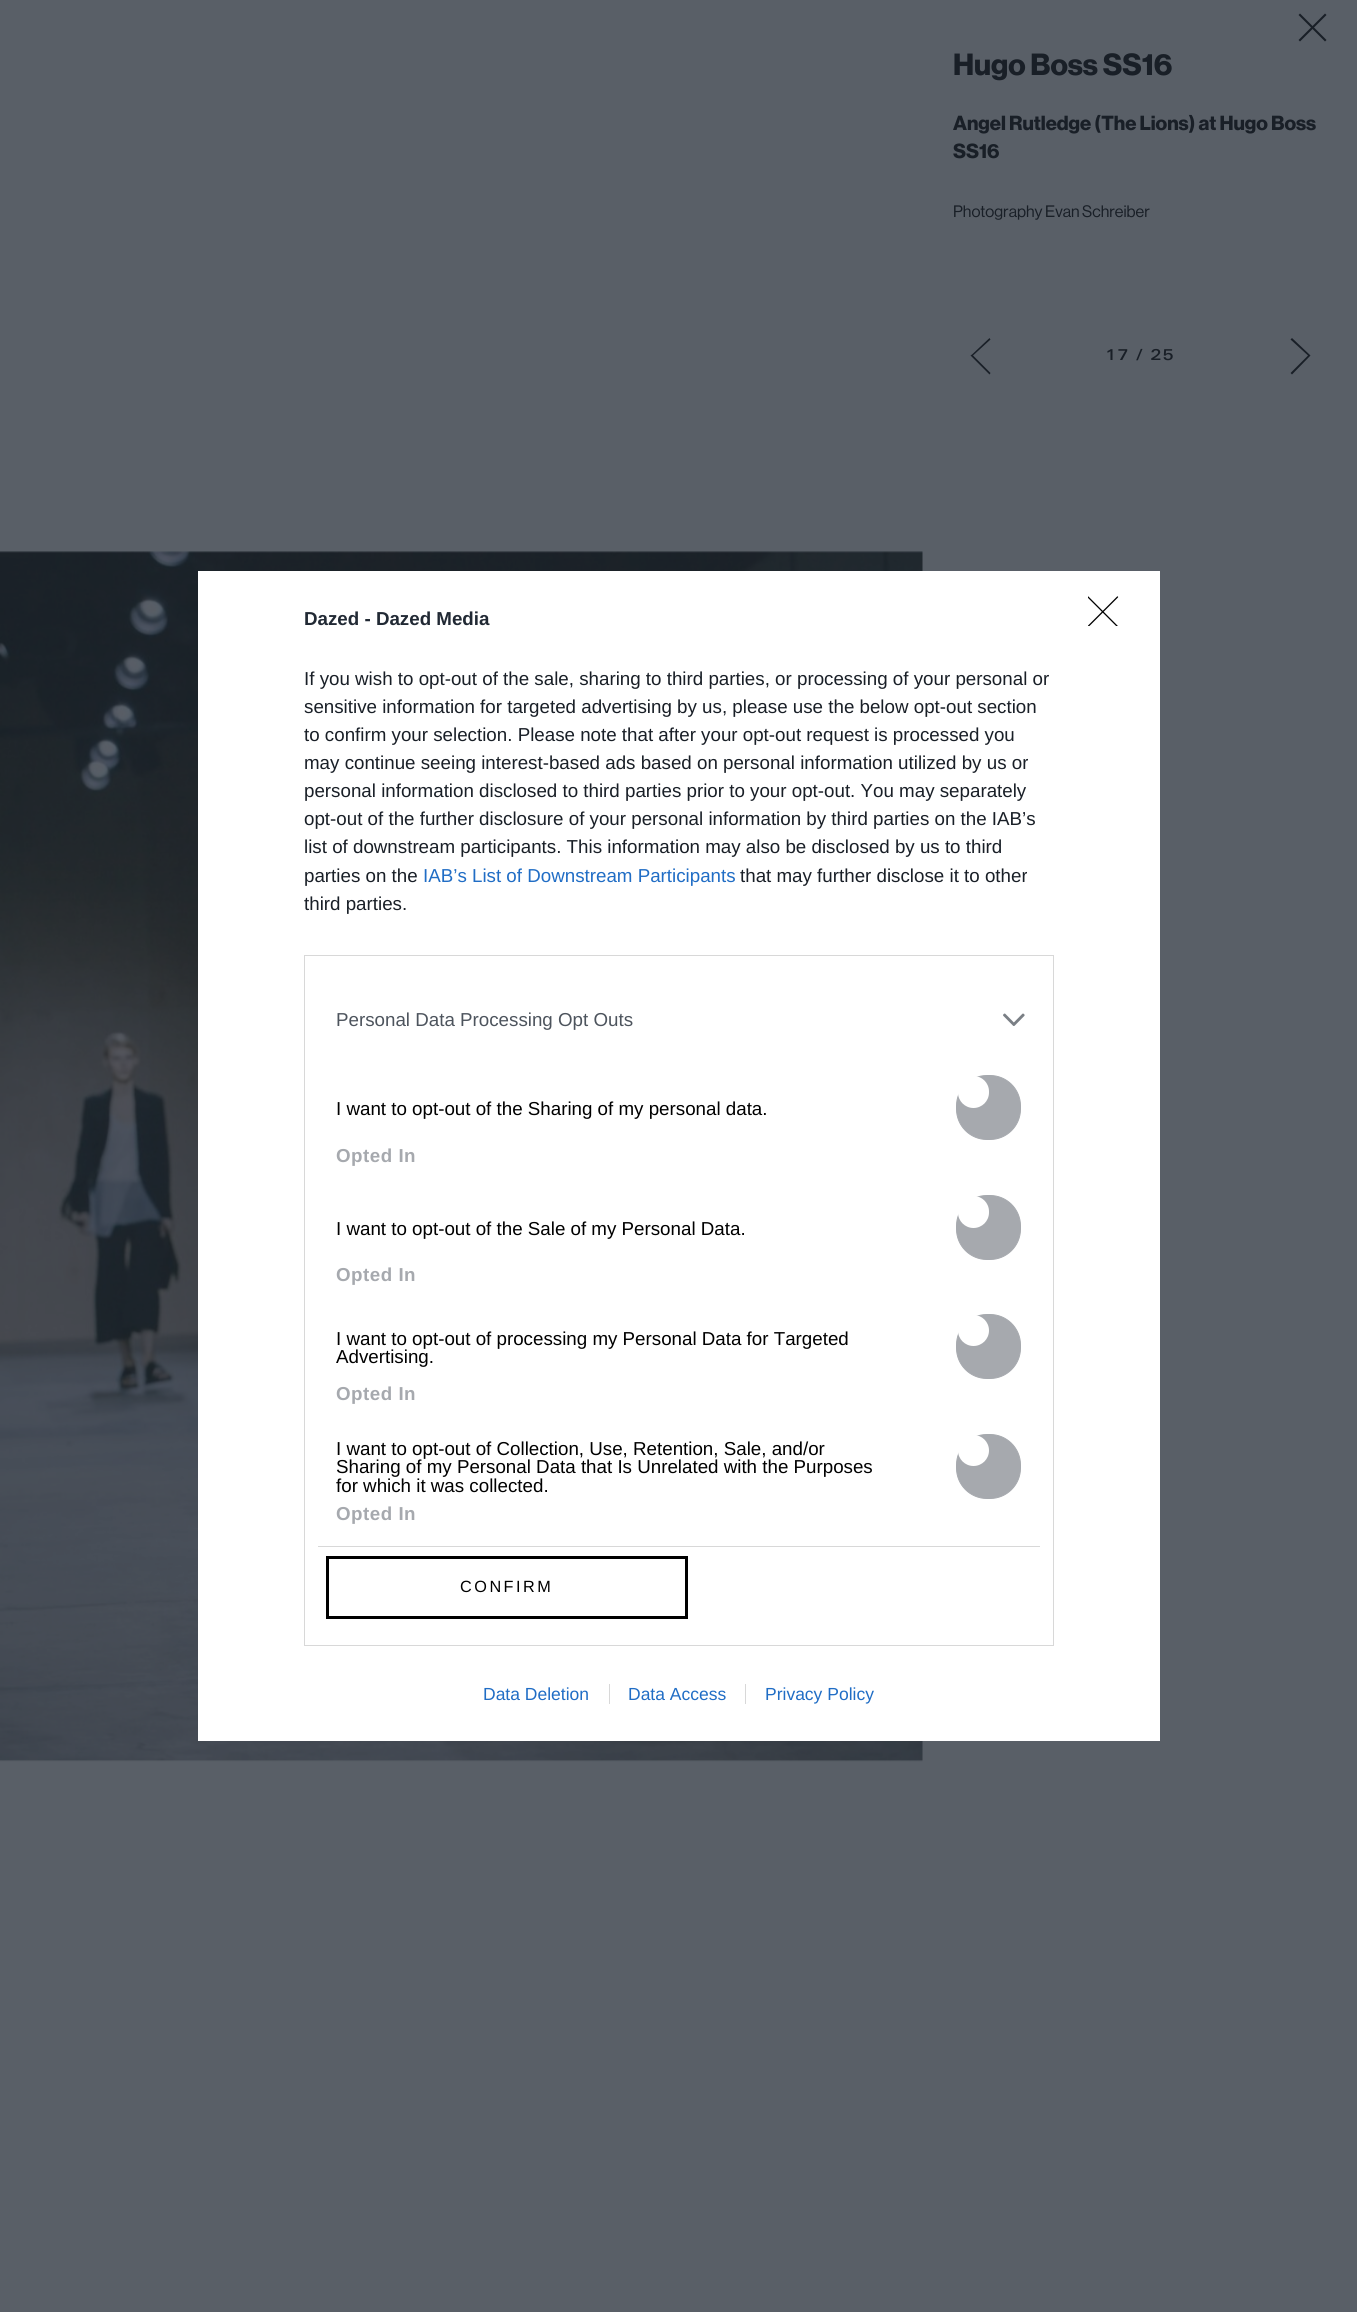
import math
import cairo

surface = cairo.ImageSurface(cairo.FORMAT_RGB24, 1357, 2312)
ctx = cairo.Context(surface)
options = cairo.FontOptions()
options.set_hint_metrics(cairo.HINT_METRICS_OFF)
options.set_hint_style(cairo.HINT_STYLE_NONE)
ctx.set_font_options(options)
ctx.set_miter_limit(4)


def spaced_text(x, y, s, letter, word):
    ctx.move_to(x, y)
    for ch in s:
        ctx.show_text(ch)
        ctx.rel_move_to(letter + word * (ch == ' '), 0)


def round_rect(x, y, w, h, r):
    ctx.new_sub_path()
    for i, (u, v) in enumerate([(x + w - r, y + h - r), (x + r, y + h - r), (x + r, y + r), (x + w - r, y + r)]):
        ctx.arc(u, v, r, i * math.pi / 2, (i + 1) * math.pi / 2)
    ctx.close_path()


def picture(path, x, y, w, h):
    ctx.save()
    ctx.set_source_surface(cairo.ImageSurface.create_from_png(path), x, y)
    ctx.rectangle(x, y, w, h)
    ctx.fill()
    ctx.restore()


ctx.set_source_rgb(0.349, 0.373, 0.404)
ctx.paint()
ctx.set_source_rgb(0.098, 0.122, 0.153)
ctx.set_fill_rule(cairo.FILL_RULE_EVEN_ODD)
ctx.new_path()
ctx.move_to(1325, 13.5)
ctx.line_to(1326.5, 15)
ctx.line_to(1300, 41.5)
ctx.line_to(1298.5, 40)
ctx.close_path()
ctx.fill()
ctx.new_path()
ctx.move_to(1326.5, 40)
ctx.line_to(1325, 41.5)
ctx.line_to(1298.5, 15)
ctx.line_to(1300, 13.5)
ctx.close_path()
ctx.fill()
ctx.select_font_face("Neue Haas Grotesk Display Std", cairo.FONT_SLANT_NORMAL, cairo.FONT_WEIGHT_BOLD)
ctx.set_font_size(30)
ctx.move_to(953, 75)
ctx.show_text("Hugo Boss SS16")
ctx.set_font_size(20)
ctx.move_to(953, 130)
ctx.show_text("Angel Rutledge (The Lions) at Hugo Boss")
ctx.move_to(953, 158)
ctx.show_text("SS16")
ctx.select_font_face("Neue Haas Grotesk Display Std")
ctx.set_font_size(16.25)
ctx.move_to(953, 217)
ctx.show_text("Photography Evan Schreiber")
ctx.set_fill_rule(cairo.FILL_RULE_WINDING)
ctx.new_path()
ctx.move_to(972, 354.5)
ctx.line_to(989.5, 338)
ctx.line_to(990.5, 339.5)
ctx.line_to(973, 355.5)
ctx.line_to(990.5, 373)
ctx.line_to(989.5, 374.5)
ctx.line_to(970.5, 355.5)
ctx.close_path()
ctx.fill()
ctx.select_font_face("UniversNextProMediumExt")
ctx.set_font_size(15)
spaced_text(1105, 360, "17 / 25", 1, 0)
ctx.new_path()
ctx.move_to(1308, 355.5)
ctx.line_to(1290.5, 339.5)
ctx.line_to(1292, 338)
ctx.line_to(1310.5, 355.5)
ctx.line_to(1292, 374.5)
ctx.line_to(1290.5, 373)
ctx.close_path()
ctx.fill()
picture("img1.png", 0, 551, 923, 1211)
ctx.set_source_rgb(1, 1, 1)
ctx.rectangle(198, 571, 962, 1170)
ctx.fill()
ctx.select_font_face("Liberation Sans", cairo.FONT_SLANT_NORMAL, cairo.FONT_WEIGHT_BOLD)
ctx.set_font_size(18.75)
ctx.set_source_rgb(0.129, 0.161, 0.204)
ctx.move_to(304, 625)
ctx.show_text("Dazed - Dazed Media")
ctx.select_font_face("Liberation Sans")
ctx.set_source_rgb(0.098, 0.122, 0.153)
ctx.move_to(304, 685)
ctx.show_text("If you wish to opt-out of the sale, sharing to third parties, or processing of your personal or")
ctx.move_to(304, 713)
ctx.show_text("sensitive information for targeted advertising by us, please use the below opt-out section")
ctx.move_to(304, 741)
ctx.show_text("to confirm your selection. Please note that after your opt-out request is processed you")
ctx.move_to(304, 769)
ctx.show_text("may continue seeing interest-based ads based on personal information utilized by us or")
ctx.move_to(304, 797)
ctx.show_text("personal information disclosed to third parties prior to your opt-out. You may separately")
ctx.move_to(304, 825)
ctx.show_text("opt-out of the further disclosure of your personal information by third parties on the IAB’s")
ctx.move_to(304, 853)
ctx.show_text("list of downstream participants. This information may also be disclosed by us to third")
ctx.move_to(304, 882)
ctx.show_text("parties on the")
ctx.set_source_rgb(0.125, 0.427, 0.773)
ctx.move_to(423, 882)
ctx.show_text("IAB’s List of Downstream Participants")
ctx.set_source_rgb(0.098, 0.122, 0.153)
ctx.move_to(740, 882)
ctx.show_text("that may further disclose it to other")
ctx.move_to(304, 910)
ctx.show_text("third parties.")
ctx.rectangle(304.5, 955.5, 749, 690)
ctx.set_source_rgb(0.847, 0.847, 0.847)
ctx.set_line_width(1)
ctx.stroke()
ctx.rectangle(318, 1546, 722, 1)
ctx.fill()
ctx.set_source_rgb(0.302, 0.329, 0.365)
ctx.move_to(336, 1026)
ctx.show_text("Personal Data Processing Opt Outs")
picture("img2.png", 1003, 1013, 22, 13)
ctx.set_source_rgb(0, 0, 0)
ctx.move_to(336, 1115)
ctx.show_text("I want to opt-out of the Sharing of my personal data.")
ctx.set_source_rgb(0.651, 0.663, 0.682)
round_rect(956.5, 1075.5, 64, 64, 30.5)
ctx.fill_preserve()
ctx.stroke()
ctx.set_source_rgb(1, 1, 1)
round_rect(958, 1076, 31, 32, 15.5)
ctx.fill()
ctx.select_font_face("Liberation Sans", cairo.FONT_SLANT_NORMAL, cairo.FONT_WEIGHT_BOLD)
ctx.set_source_rgb(0.651, 0.663, 0.682)
spaced_text(336, 1162, "Opted In", 0.5, 0)
ctx.select_font_face("Liberation Sans")
ctx.set_source_rgb(0, 0, 0)
ctx.move_to(336, 1235)
ctx.show_text("I want to opt-out of the Sale of my Personal Data.")
ctx.set_source_rgb(0.651, 0.663, 0.682)
round_rect(956.5, 1195.5, 64, 64, 30.5)
ctx.fill_preserve()
ctx.stroke()
ctx.set_source_rgb(1, 1, 1)
round_rect(958, 1196, 31, 32, 15.5)
ctx.fill()
ctx.select_font_face("Liberation Sans", cairo.FONT_SLANT_NORMAL, cairo.FONT_WEIGHT_BOLD)
ctx.set_source_rgb(0.651, 0.663, 0.682)
spaced_text(336, 1281, "Opted In", 0.5, 0)
ctx.select_font_face("Liberation Sans")
ctx.set_source_rgb(0, 0, 0)
ctx.move_to(336, 1345)
ctx.show_text("I want to opt-out of processing my Personal Data for Targeted")
ctx.move_to(336, 1363)
ctx.show_text("Advertising.")
ctx.set_source_rgb(0.651, 0.663, 0.682)
round_rect(956.5, 1314.5, 64, 64, 30.5)
ctx.fill_preserve()
ctx.stroke()
ctx.set_source_rgb(1, 1, 1)
ctx.arc(973.5, 1330.5, 15.5, 0, 2 * math.pi)
ctx.fill()
ctx.select_font_face("Liberation Sans", cairo.FONT_SLANT_NORMAL, cairo.FONT_WEIGHT_BOLD)
ctx.set_source_rgb(0.651, 0.663, 0.682)
spaced_text(336, 1400, "Opted In", 0.5, 0)
ctx.select_font_face("Liberation Sans")
ctx.set_source_rgb(0, 0, 0)
ctx.move_to(336, 1455)
ctx.show_text("I want to opt-out of Collection, Use, Retention, Sale, and/or")
ctx.move_to(336, 1473)
ctx.show_text("Sharing of my Personal Data that Is Unrelated with the Purposes")
ctx.move_to(336, 1492)
ctx.show_text("for which it was collected.")
ctx.set_source_rgb(0.651, 0.663, 0.682)
round_rect(956.5, 1434.5, 64, 64, 30.5)
ctx.fill_preserve()
ctx.stroke()
ctx.set_source_rgb(1, 1, 1)
ctx.arc(973.5, 1450.5, 15.5, 0, 2 * math.pi)
ctx.fill()
ctx.select_font_face("Liberation Sans", cairo.FONT_SLANT_NORMAL, cairo.FONT_WEIGHT_BOLD)
ctx.set_source_rgb(0.651, 0.663, 0.682)
spaced_text(336, 1520, "Opted In", 0.5, 0)
ctx.rectangle(327.5, 1557.5, 359, 60)
ctx.set_source_rgb(0, 0, 0)
ctx.set_line_width(3)
ctx.stroke()
ctx.select_font_face("Liberation Sans")
ctx.set_font_size(16.25)
spaced_text(460, 1592, "CONFIRM", 2.5, 0)
ctx.save()
ctx.rectangle(1088, 596, 31, 30)
ctx.clip()
ctx.new_path()
ctx.move_to(1088, 597)
ctx.line_to(1117.5, 626.5)
ctx.move_to(1117.5, 597)
ctx.line_to(1088, 626.5)
ctx.set_line_width(1.3)
ctx.set_line_cap(cairo.LINE_CAP_ROUND)
ctx.set_line_join(cairo.LINE_JOIN_ROUND)
ctx.stroke()
ctx.restore()
ctx.set_font_size(17.5)
ctx.set_source_rgb(0.125, 0.427, 0.773)
ctx.move_to(483, 1700)
ctx.show_text("Data Deletion")
ctx.move_to(628, 1700)
ctx.show_text("Data Access")
ctx.set_source_rgb(0.847, 0.847, 0.847)
ctx.rectangle(609, 1684, 1, 20)
ctx.fill()
ctx.set_source_rgb(0.125, 0.427, 0.773)
ctx.move_to(765, 1700)
ctx.show_text("Privacy Policy")
ctx.set_source_rgb(0.847, 0.847, 0.847)
ctx.rectangle(745, 1684, 1, 20)
ctx.fill()
surface.write_to_png("page.png")
